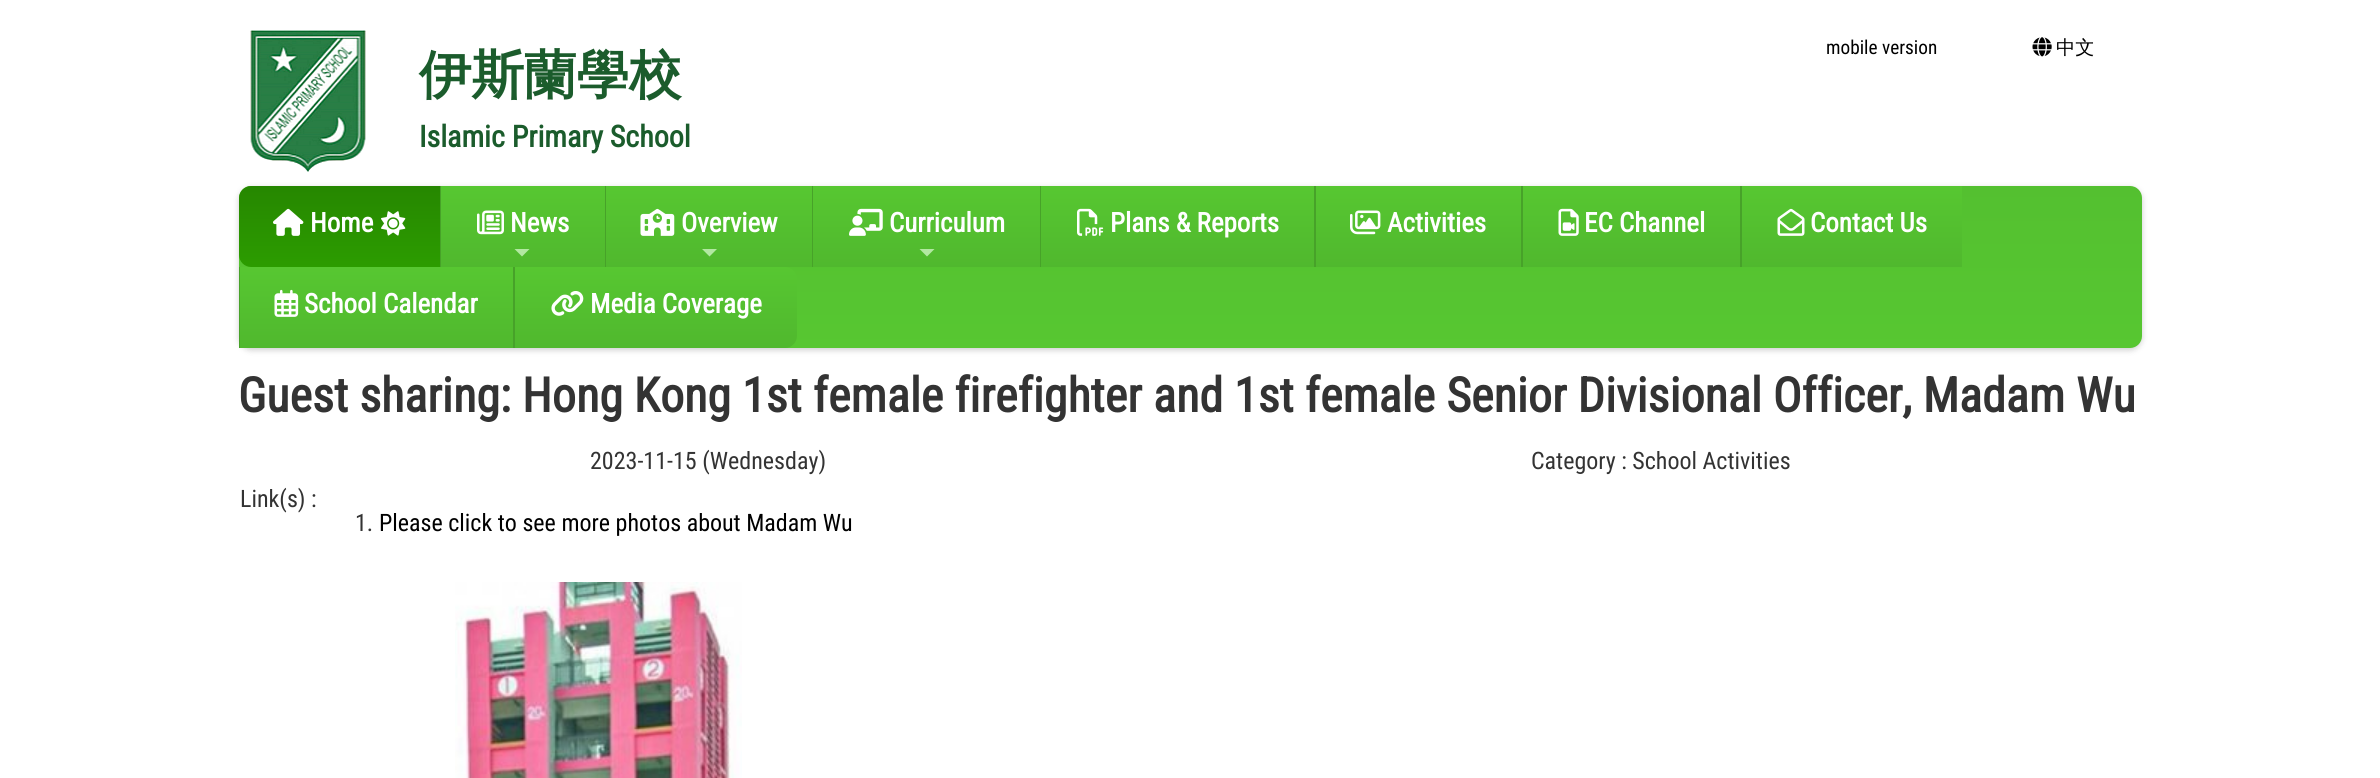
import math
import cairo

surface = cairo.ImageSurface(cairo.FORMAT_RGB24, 2380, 778)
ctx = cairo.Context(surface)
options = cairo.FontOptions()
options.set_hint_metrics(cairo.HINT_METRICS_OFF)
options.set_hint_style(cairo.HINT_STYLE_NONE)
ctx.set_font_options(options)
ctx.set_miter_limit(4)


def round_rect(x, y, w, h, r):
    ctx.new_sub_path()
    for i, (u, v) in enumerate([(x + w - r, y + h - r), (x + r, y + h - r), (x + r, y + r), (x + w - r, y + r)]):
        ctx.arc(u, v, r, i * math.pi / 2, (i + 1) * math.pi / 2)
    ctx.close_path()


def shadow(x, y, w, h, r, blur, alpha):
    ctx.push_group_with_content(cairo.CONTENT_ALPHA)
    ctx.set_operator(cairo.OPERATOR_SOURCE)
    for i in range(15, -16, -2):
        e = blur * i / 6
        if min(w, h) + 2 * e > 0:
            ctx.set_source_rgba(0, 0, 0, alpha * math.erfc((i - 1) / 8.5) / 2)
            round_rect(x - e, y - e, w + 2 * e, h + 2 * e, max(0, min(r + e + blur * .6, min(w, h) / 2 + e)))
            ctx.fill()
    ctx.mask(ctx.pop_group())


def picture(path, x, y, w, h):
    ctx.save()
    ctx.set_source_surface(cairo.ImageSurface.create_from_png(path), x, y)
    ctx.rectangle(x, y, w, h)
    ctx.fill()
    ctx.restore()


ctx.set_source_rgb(1, 1, 1)
ctx.paint()
ctx.select_font_face("Roboto Condensed")
ctx.set_font_size(19.25)
ctx.set_source_rgb(0, 0, 0)
ctx.move_to(1826, 54)
ctx.show_text("mobile version")
picture("img1.png", 2032, 37, 20, 20)
ctx.select_font_face("WenQuanYi Zen Hei Medium")
ctx.move_to(2056, 54)
ctx.show_text("中文")
picture("img2.png", 250, 30, 116, 142)
ctx.select_font_face("WenQuanYi Zen Hei", cairo.FONT_SLANT_NORMAL, cairo.FONT_WEIGHT_BOLD)
ctx.set_font_size(52.5)
ctx.set_source_rgb(0.106, 0.361, 0.173)
ctx.move_to(419, 93)
ctx.show_text("伊斯蘭學校")
ctx.select_font_face("Roboto Condensed", cairo.FONT_SLANT_NORMAL, cairo.FONT_WEIGHT_BOLD)
ctx.set_font_size(30)
ctx.move_to(419, 147)
ctx.show_text("Islamic Primary School")
ctx.set_source_rgb(0, 0, 0)
shadow(239, 188, 1903, 162, 12, 3, 0.2)
gradient = cairo.LinearGradient(1190, 186, 1190, 348)
gradient.add_color_stop_rgba(0, 0.329, 0.753, 0.188, 1)
gradient.add_color_stop_rgba(1, 0.341, 0.78, 0.192, 1)
ctx.set_source(gradient)
round_rect(239, 186, 1903, 162, 12)
ctx.fill()
gradient = cairo.LinearGradient(339, 186, 339, 267)
gradient.add_color_stop_rgba(0, 0.149, 0.529, 0, 1)
gradient.add_color_stop_rgba(1, 0.173, 0.612, 0, 1)
ctx.set_source(gradient)
ctx.new_path()
ctx.move_to(251, 186)
ctx.line_to(440, 186)
ctx.line_to(440, 267)
ctx.line_to(251, 267)
ctx.curve_to(244.5, 267, 239, 261.5, 239, 255)
ctx.line_to(239, 198)
ctx.curve_to(239, 191.5, 244.5, 186, 251, 186)
ctx.close_path()
ctx.fill()
picture("img3.png", 273, 208, 31, 28)
ctx.set_font_size(27)
ctx.set_source_rgb(1, 1, 1)
ctx.move_to(310, 232)
ctx.show_text("Home")
picture("img4.png", 381, 211, 25, 25)
ctx.set_source_rgb(0.278, 0.635, 0.161)
ctx.rectangle(440, 186, 1, 81)
ctx.fill()
gradient = cairo.LinearGradient(523, 186, 523, 267)
gradient.add_color_stop_rgba(0, 0.341, 0.78, 0.192, 1)
gradient.add_color_stop_rgba(1, 0.314, 0.722, 0.18, 1)
ctx.set_source(gradient)
ctx.rectangle(441, 186, 164, 81)
ctx.fill()
picture("img5.png", 477, 210, 27, 25)
ctx.set_source_rgb(1, 1, 1)
ctx.move_to(510, 232)
ctx.show_text("News")
ctx.set_source_rgb(0.698, 0.91, 0.631)
ctx.new_path()
ctx.move_to(514.5, 249)
ctx.line_to(529.5, 249)
ctx.line_to(522, 256.5)
ctx.close_path()
ctx.fill()
ctx.set_source_rgb(0.278, 0.635, 0.161)
ctx.rectangle(605, 186, 1, 81)
ctx.fill()
gradient = cairo.LinearGradient(709, 186, 709, 267)
gradient.add_color_stop_rgba(0, 0.341, 0.78, 0.192, 1)
gradient.add_color_stop_rgba(1, 0.314, 0.722, 0.18, 1)
ctx.set_source(gradient)
ctx.rectangle(606, 186, 206, 81)
ctx.fill()
picture("img6.png", 640, 208, 35, 28)
ctx.set_source_rgb(1, 1, 1)
ctx.move_to(681, 232)
ctx.show_text("Overview")
ctx.set_source_rgb(0.698, 0.91, 0.631)
ctx.new_path()
ctx.move_to(702, 249)
ctx.line_to(717, 249)
ctx.line_to(709.5, 256.5)
ctx.close_path()
ctx.fill()
ctx.set_source_rgb(0.278, 0.635, 0.161)
ctx.rectangle(812, 186, 1, 81)
ctx.fill()
gradient = cairo.LinearGradient(926, 186, 926, 267)
gradient.add_color_stop_rgba(0, 0.341, 0.78, 0.192, 1)
gradient.add_color_stop_rgba(1, 0.314, 0.722, 0.18, 1)
ctx.set_source(gradient)
ctx.rectangle(813, 186, 227, 81)
ctx.fill()
picture("img7.png", 849, 208, 34, 28)
ctx.set_source_rgb(1, 1, 1)
ctx.move_to(889, 232)
ctx.show_text("Curriculum")
ctx.set_source_rgb(0.698, 0.91, 0.631)
ctx.new_path()
ctx.move_to(919.5, 249)
ctx.line_to(934.5, 249)
ctx.line_to(927, 256.5)
ctx.close_path()
ctx.fill()
ctx.set_source_rgb(0.278, 0.635, 0.161)
ctx.rectangle(1040, 186, 1, 81)
ctx.fill()
gradient = cairo.LinearGradient(1178, 186, 1178, 267)
gradient.add_color_stop_rgba(0, 0.341, 0.78, 0.192, 1)
gradient.add_color_stop_rgba(1, 0.314, 0.722, 0.18, 1)
ctx.set_source(gradient)
ctx.rectangle(1041, 186, 273, 81)
ctx.fill()
picture("img8.png", 1077, 208, 27, 28)
ctx.set_source_rgb(1, 1, 1)
ctx.move_to(1110, 232)
ctx.show_text("Plans & Reports")
ctx.set_source_rgb(0.278, 0.635, 0.161)
ctx.rectangle(1314, 186, 2, 81)
ctx.fill()
gradient = cairo.LinearGradient(1418, 186, 1418, 267)
gradient.add_color_stop_rgba(0, 0.341, 0.78, 0.192, 1)
gradient.add_color_stop_rgba(1, 0.314, 0.722, 0.18, 1)
ctx.set_source(gradient)
ctx.rectangle(1316, 186, 205, 81)
ctx.fill()
picture("img9.png", 1350, 210, 31, 25)
ctx.set_source_rgb(1, 1, 1)
ctx.move_to(1387, 232)
ctx.show_text("Activities")
ctx.set_source_rgb(0.278, 0.635, 0.161)
ctx.rectangle(1521, 186, 2, 81)
ctx.fill()
gradient = cairo.LinearGradient(1631, 186, 1631, 267)
gradient.add_color_stop_rgba(0, 0.341, 0.78, 0.192, 1)
gradient.add_color_stop_rgba(1, 0.314, 0.722, 0.18, 1)
ctx.set_source(gradient)
ctx.rectangle(1523, 186, 217, 81)
ctx.fill()
picture("img10.png", 1558, 208, 21, 28)
ctx.set_source_rgb(1, 1, 1)
ctx.move_to(1584, 232)
ctx.show_text("EC Channel")
ctx.set_source_rgb(0.278, 0.635, 0.161)
ctx.rectangle(1740, 186, 2, 81)
ctx.fill()
gradient = cairo.LinearGradient(1852, 186, 1852, 267)
gradient.add_color_stop_rgba(0, 0.341, 0.78, 0.192, 1)
gradient.add_color_stop_rgba(1, 0.314, 0.722, 0.18, 1)
ctx.set_source(gradient)
ctx.rectangle(1742, 186, 220, 81)
ctx.fill()
picture("img11.png", 1777, 208, 28, 28)
ctx.set_source_rgb(1, 1, 1)
ctx.move_to(1810, 232)
ctx.show_text("Contact Us")
ctx.set_source_rgb(0.278, 0.635, 0.161)
ctx.rectangle(239, 267, 1, 81)
ctx.fill()
gradient = cairo.LinearGradient(377, 267, 377, 348)
gradient.add_color_stop_rgba(0, 0.341, 0.78, 0.192, 1)
gradient.add_color_stop_rgba(1, 0.314, 0.722, 0.18, 1)
ctx.set_source(gradient)
ctx.rectangle(240, 267, 273, 81)
ctx.fill()
picture("img12.png", 274, 289, 25, 28)
ctx.set_source_rgb(1, 1, 1)
ctx.move_to(304, 313)
ctx.show_text("School Calendar")
ctx.set_source_rgb(0.278, 0.635, 0.161)
ctx.rectangle(513, 267, 2, 81)
ctx.fill()
gradient = cairo.LinearGradient(656, 267, 656, 348)
gradient.add_color_stop_rgba(0, 0.341, 0.78, 0.192, 1)
gradient.add_color_stop_rgba(1, 0.314, 0.722, 0.18, 1)
ctx.set_source(gradient)
ctx.new_path()
ctx.move_to(515, 267)
ctx.line_to(785, 267)
ctx.curve_to(791.5, 267, 797, 272.5, 797, 279)
ctx.line_to(797, 336)
ctx.curve_to(797, 342.5, 791.5, 348, 785, 348)
ctx.line_to(515, 348)
ctx.close_path()
ctx.fill()
picture("img13.png", 551, 291, 33, 25)
ctx.set_source_rgb(1, 1, 1)
ctx.move_to(590, 313)
ctx.show_text("Media Coverage")
ctx.set_font_size(48)
ctx.set_source_rgb(0.2, 0.2, 0.2)
ctx.move_to(238, 412)
ctx.show_text("Guest sharing: Hong Kong 1st female firefighter and 1st female Senior Divisional Officer, Madam Wu")
ctx.select_font_face("Roboto Condensed")
ctx.set_font_size(24)
ctx.move_to(590, 469)
ctx.show_text("2023-11-15 (Wednesday)")
ctx.move_to(1531, 469)
ctx.show_text("Category : School Activities")
ctx.move_to(240, 507)
ctx.show_text("Link(s) :")
ctx.move_to(355, 531)
ctx.show_text("1.")
ctx.set_source_rgb(0, 0, 0)
ctx.move_to(379, 531)
ctx.show_text("Please click to see more photos about Madam Wu")
picture("img14.png", 455, 582, 287, 196)
surface.write_to_png("page.png")
